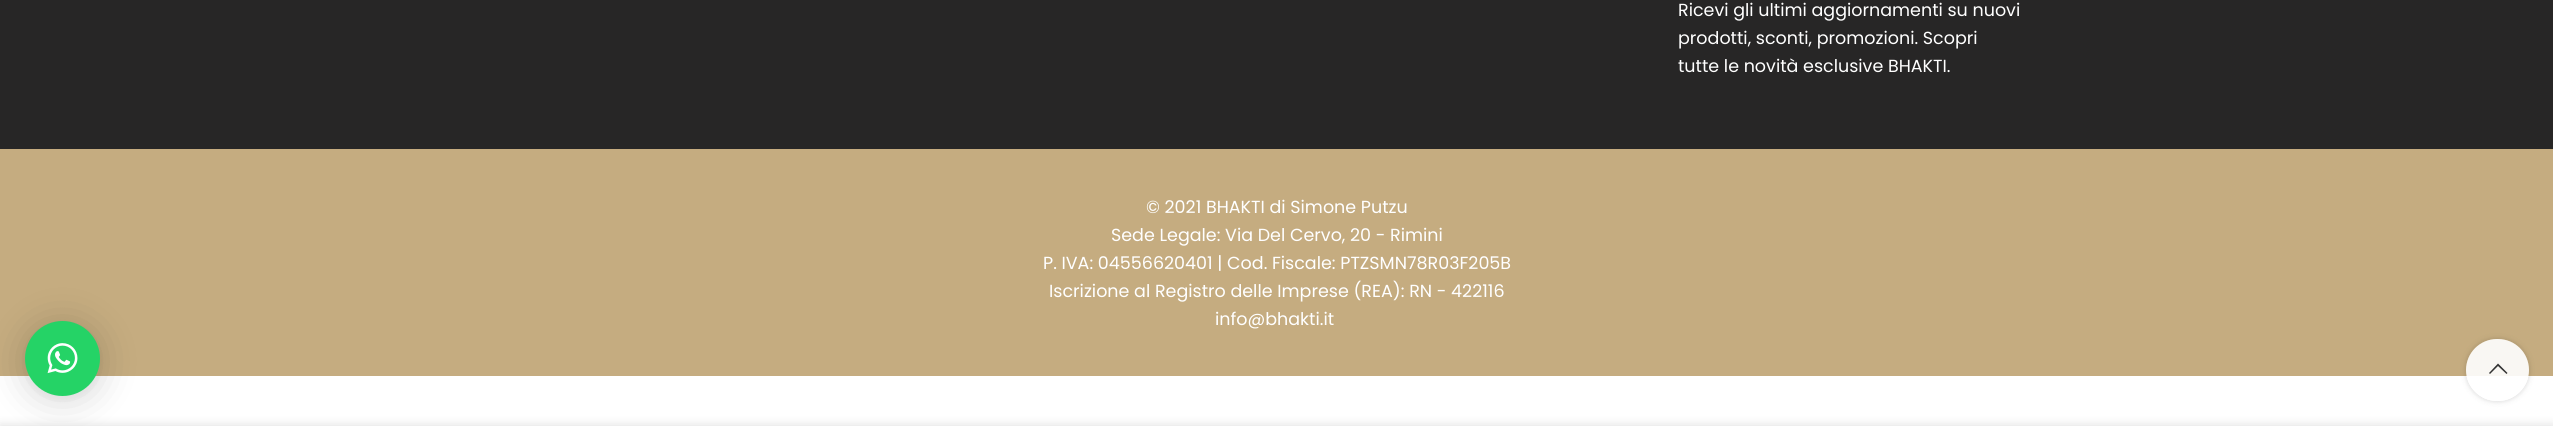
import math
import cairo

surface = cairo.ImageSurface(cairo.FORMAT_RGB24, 2553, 426)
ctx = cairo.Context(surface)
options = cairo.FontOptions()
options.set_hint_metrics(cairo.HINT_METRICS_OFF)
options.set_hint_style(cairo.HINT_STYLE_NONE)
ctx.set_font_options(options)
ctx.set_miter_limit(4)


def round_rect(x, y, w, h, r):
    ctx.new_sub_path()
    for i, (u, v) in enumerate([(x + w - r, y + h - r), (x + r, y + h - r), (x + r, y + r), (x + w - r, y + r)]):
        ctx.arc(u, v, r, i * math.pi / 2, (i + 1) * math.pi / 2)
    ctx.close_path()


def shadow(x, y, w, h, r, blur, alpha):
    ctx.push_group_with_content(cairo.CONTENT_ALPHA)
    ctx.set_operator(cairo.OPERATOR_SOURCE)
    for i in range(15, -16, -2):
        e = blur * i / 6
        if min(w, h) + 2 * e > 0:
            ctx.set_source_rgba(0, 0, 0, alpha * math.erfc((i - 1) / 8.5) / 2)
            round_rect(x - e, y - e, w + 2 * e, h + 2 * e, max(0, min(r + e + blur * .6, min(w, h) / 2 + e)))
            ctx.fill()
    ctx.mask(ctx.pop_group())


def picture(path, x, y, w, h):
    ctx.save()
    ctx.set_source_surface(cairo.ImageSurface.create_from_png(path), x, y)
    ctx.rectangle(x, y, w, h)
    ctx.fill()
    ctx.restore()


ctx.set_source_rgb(1, 1, 1)
ctx.paint()
ctx.set_source_rgb(0.773, 0.675, 0.502)
ctx.rectangle(0, 149, 2553, 227)
ctx.fill()
ctx.set_source_rgb(0, 0, 0)
shadow(25, 324, 75, 75, 37.5, 20, 0.16)
shadow(25, 323, 75, 75, 37.5, 4, 0.06)
ctx.set_source_rgb(0.145, 0.827, 0.4)
ctx.arc(62.5, 358.5, 37.5, 0, 2 * math.pi)
ctx.fill()
picture("img1.png", 47, 343, 31, 31)
ctx.set_source_rgb(0.153, 0.149, 0.149)
ctx.rectangle(0, 0, 2553, 149)
ctx.fill()
ctx.select_font_face("Poppins")
ctx.set_font_size(17.5)
ctx.set_source_rgb(1, 1, 1)
ctx.move_to(1678, 16)
ctx.show_text("Ricevi gli ultimi aggiornamenti su nuovi")
ctx.move_to(1678, 44)
ctx.show_text("prodotti, sconti, promozioni. Scopri")
ctx.move_to(1678, 72)
ctx.show_text("tutte le novità esclusive BHAKTI.")
ctx.move_to(1146, 213)
ctx.show_text("© 2021 BHAKTI di Simone Putzu")
ctx.move_to(1111, 241)
ctx.show_text("Sede Legale: Via Del Cervo, 20 - Rimini")
ctx.move_to(1043, 269)
ctx.show_text("P. IVA: 04556620401 | Cod. Fiscale: PTZSMN78R03F205B")
ctx.move_to(1049, 297)
ctx.show_text("Iscrizione al Registro delle Imprese (REA): RN - 422116")
ctx.move_to(1215, 325)
ctx.show_text("info@bhakti.it")
ctx.save()
ctx.set_fill_rule(cairo.FILL_RULE_EVEN_ODD)
ctx.new_path()
ctx.move_to(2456, 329)
ctx.line_to(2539, 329)
ctx.line_to(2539, 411)
ctx.line_to(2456, 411)
ctx.close_path()
ctx.move_to(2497, 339)
ctx.line_to(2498, 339)
ctx.curve_to(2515, 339, 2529, 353, 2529, 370)
ctx.curve_to(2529, 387, 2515, 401, 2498, 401)
ctx.line_to(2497, 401)
ctx.curve_to(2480, 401, 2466, 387, 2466, 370)
ctx.curve_to(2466, 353, 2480, 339, 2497, 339)
ctx.close_path()
ctx.clip()
ctx.set_source_rgb(0, 0, 0)
shadow(2466, 339, 63, 62, 31, 3, 0.17)
ctx.restore()
ctx.set_source_rgba(1, 1, 1, 0.9)
round_rect(2466, 339, 63, 62, 31)
ctx.fill()
ctx.set_source_rgb(0.2, 0.2, 0.2)
ctx.new_path()
ctx.move_to(2506.5, 374)
ctx.line_to(2507.5, 373)
ctx.line_to(2498, 363.5)
ctx.line_to(2489, 373)
ctx.line_to(2490, 374)
ctx.line_to(2498, 366)
ctx.close_path()
ctx.fill()
ctx.set_source_rgb(0, 0, 0)
shadow(0, 426, 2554, 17, 0, 5.5, 0.14)
surface.write_to_png("page.png")
